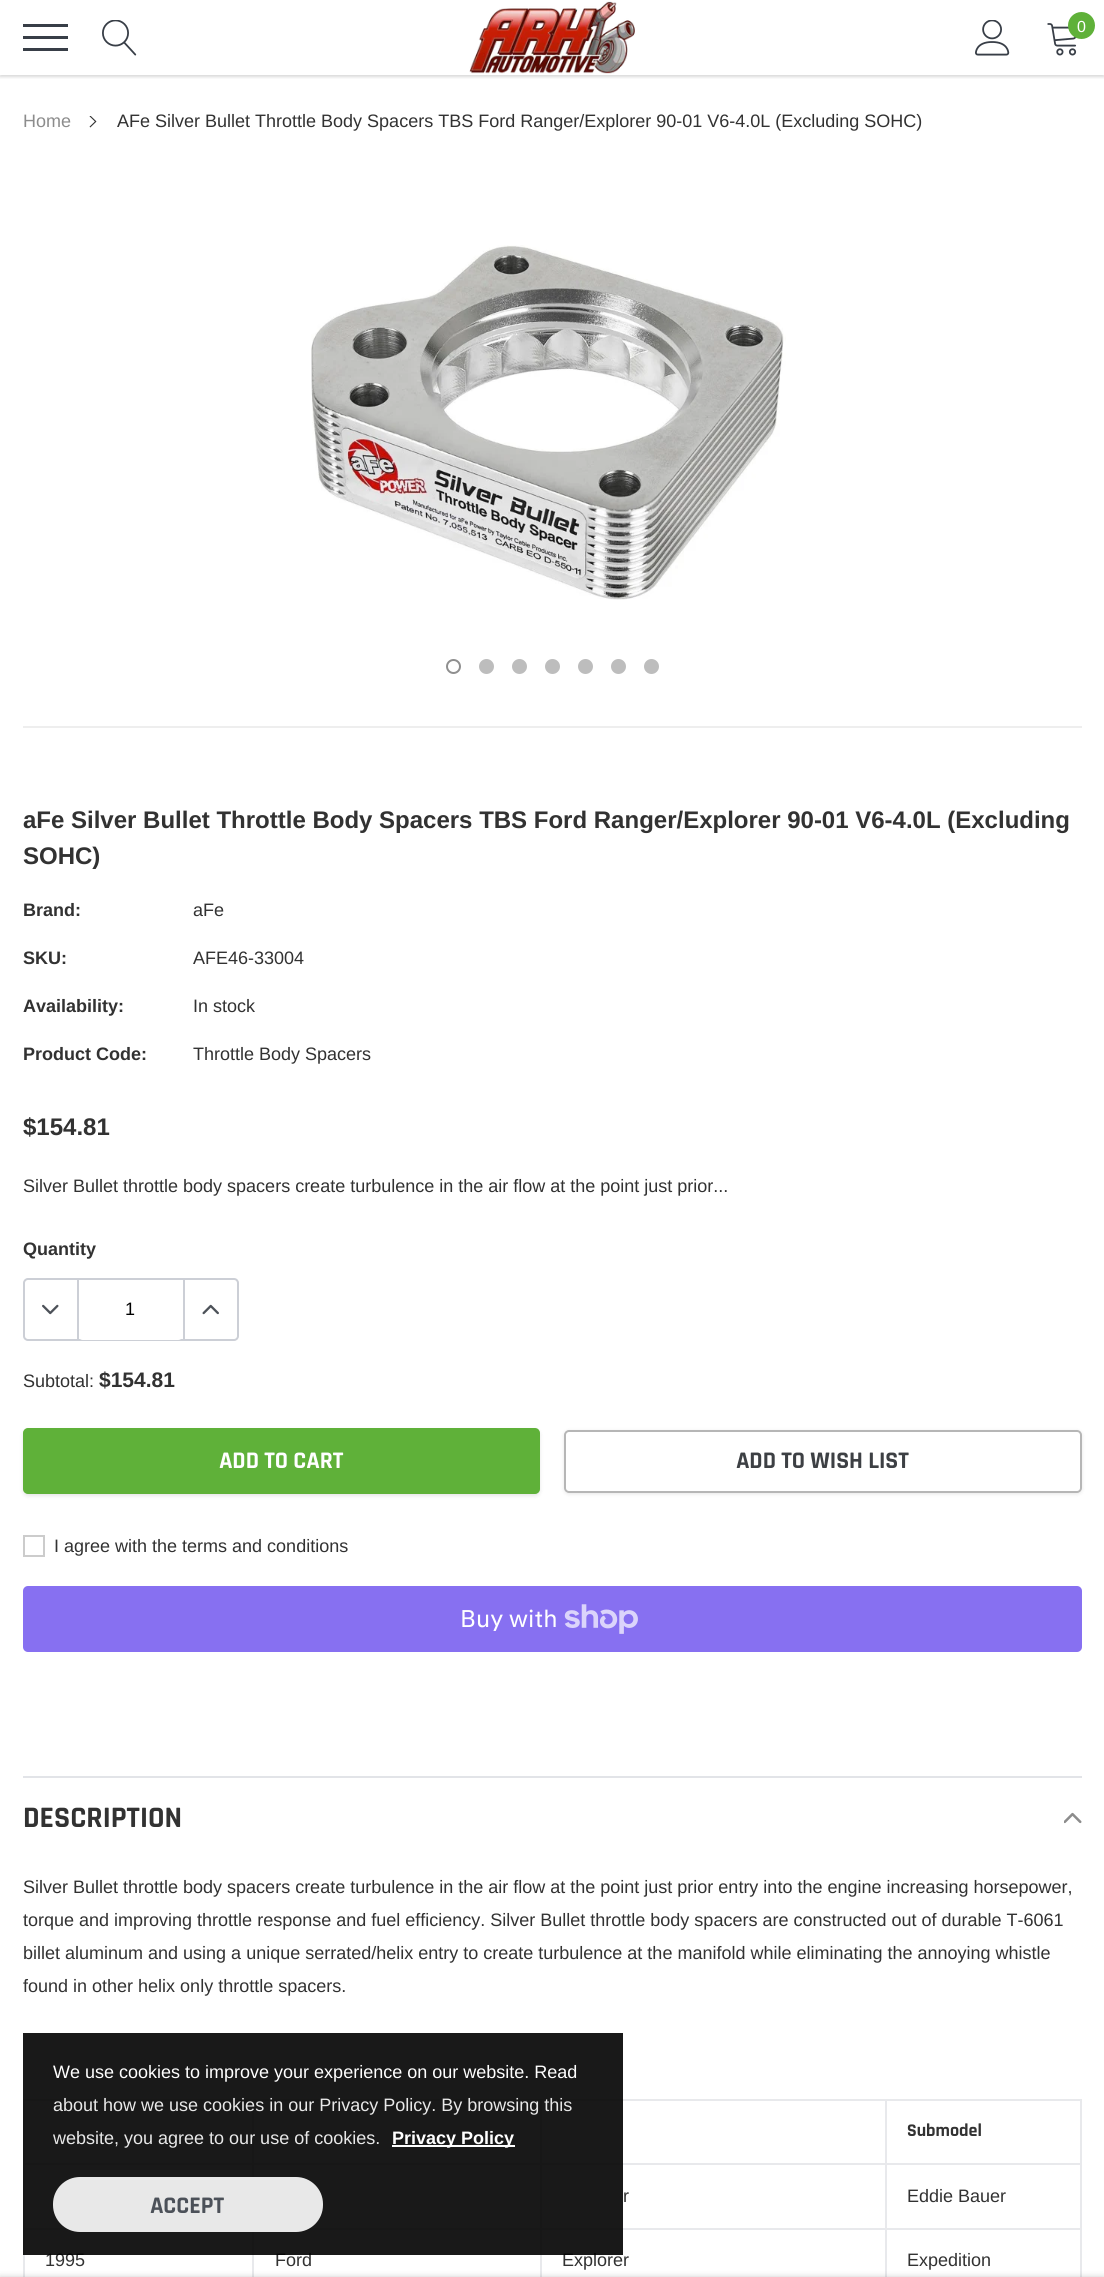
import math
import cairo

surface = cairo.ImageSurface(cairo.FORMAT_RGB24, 1104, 2277)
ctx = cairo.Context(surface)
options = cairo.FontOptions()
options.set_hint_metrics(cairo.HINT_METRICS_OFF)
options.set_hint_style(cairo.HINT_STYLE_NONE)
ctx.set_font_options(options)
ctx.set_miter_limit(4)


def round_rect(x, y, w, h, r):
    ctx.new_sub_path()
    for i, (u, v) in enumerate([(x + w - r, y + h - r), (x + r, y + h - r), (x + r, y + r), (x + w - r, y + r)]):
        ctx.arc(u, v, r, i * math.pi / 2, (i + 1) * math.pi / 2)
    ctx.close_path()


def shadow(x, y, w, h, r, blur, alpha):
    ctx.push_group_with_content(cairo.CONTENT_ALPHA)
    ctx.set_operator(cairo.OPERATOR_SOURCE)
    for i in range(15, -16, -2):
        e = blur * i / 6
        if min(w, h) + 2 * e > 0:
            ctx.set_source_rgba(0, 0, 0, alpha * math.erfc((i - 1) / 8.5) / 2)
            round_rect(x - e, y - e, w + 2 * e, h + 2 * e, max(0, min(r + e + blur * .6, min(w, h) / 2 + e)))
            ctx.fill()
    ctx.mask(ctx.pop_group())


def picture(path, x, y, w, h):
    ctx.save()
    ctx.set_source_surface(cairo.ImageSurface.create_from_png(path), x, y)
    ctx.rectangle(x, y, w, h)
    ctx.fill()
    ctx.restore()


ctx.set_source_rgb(1, 1, 1)
ctx.paint()
ctx.save()
ctx.rectangle(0, 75, 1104, 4)
ctx.clip()
ctx.set_source_rgb(0, 0, 0)
shadow(0, 2, 1104, 75, 0, 1.5, 0.15)
ctx.restore()
ctx.set_source_rgb(0.22, 0.243, 0.278)
ctx.rectangle(23, 36, 45, 3)
ctx.fill()
ctx.rectangle(23, 24, 45, 3)
ctx.fill()
ctx.rectangle(23, 48, 45, 3)
ctx.fill()
picture("img1.png", 102, 20, 35, 36)
picture("img2.png", 469, 1, 166, 73)
picture("img3.png", 975, 20, 35, 36)
picture("img4.png", 1047, 23, 30, 33)
ctx.set_source_rgb(0.373, 0.694, 0.224)
ctx.arc(1081.5, 25.5, 13.5, 0, 2 * math.pi)
ctx.fill()
ctx.select_font_face("Arimo")
ctx.set_font_size(16)
ctx.set_source_rgb(1, 1, 1)
ctx.move_to(1077, 32)
ctx.show_text("0")
ctx.set_font_size(18)
ctx.set_source_rgb(0.549, 0.549, 0.549)
ctx.move_to(23, 127)
ctx.show_text("Home")
picture("img5.png", 89, 116, 8, 12)
ctx.set_source_rgb(0.196, 0.196, 0.196)
ctx.move_to(117, 127)
ctx.show_text("AFe Silver Bullet Throttle Body Spacers TBS Ford Ranger/Explorer 90-01 V6-4.0L (Excluding SOHC)")
picture("img6.png", 311, 245, 475, 355)
ctx.arc(453.5, 666.5, 6.5, 0, 2 * math.pi)
ctx.set_source_rgb(0.561, 0.561, 0.561)
ctx.stroke()
ctx.set_source_rgb(0.741, 0.741, 0.741)
ctx.arc(486.5, 666.5, 6.5, 0, 2 * math.pi)
ctx.fill_preserve()
ctx.stroke()
ctx.arc(519.5, 666.5, 6.5, 0, 2 * math.pi)
ctx.fill_preserve()
ctx.stroke()
ctx.arc(552.5, 666.5, 6.5, 0, 2 * math.pi)
ctx.fill_preserve()
ctx.stroke()
ctx.arc(585.5, 666.5, 6.5, 0, 2 * math.pi)
ctx.fill_preserve()
ctx.stroke()
ctx.arc(618.5, 666.5, 6.5, 0, 2 * math.pi)
ctx.fill_preserve()
ctx.stroke()
ctx.arc(651.5, 666.5, 6.5, 0, 2 * math.pi)
ctx.fill_preserve()
ctx.stroke()
ctx.set_source_rgb(0.933, 0.933, 0.933)
ctx.rectangle(23, 726, 1059, 2)
ctx.fill()
ctx.select_font_face("Arimo", cairo.FONT_SLANT_NORMAL, cairo.FONT_WEIGHT_BOLD)
ctx.set_font_size(24)
ctx.set_source_rgb(0.196, 0.196, 0.196)
ctx.move_to(23, 828)
ctx.show_text("aFe Silver Bullet Throttle Body Spacers TBS Ford Ranger/Explorer 90-01 V6-4.0L (Excluding")
ctx.move_to(23, 864)
ctx.show_text("SOHC)")
ctx.set_font_size(18)
ctx.move_to(23, 916)
ctx.show_text("Brand:")
ctx.select_font_face("Arimo")
ctx.move_to(193, 916)
ctx.show_text("aFe")
ctx.select_font_face("Arimo", cairo.FONT_SLANT_NORMAL, cairo.FONT_WEIGHT_BOLD)
ctx.move_to(23, 964)
ctx.show_text("SKU:")
ctx.select_font_face("Arimo")
ctx.move_to(193, 964)
ctx.show_text("AFE46-33004")
ctx.select_font_face("Arimo", cairo.FONT_SLANT_NORMAL, cairo.FONT_WEIGHT_BOLD)
ctx.move_to(23, 1012)
ctx.show_text("Availability:")
ctx.select_font_face("Arimo")
ctx.move_to(193, 1012)
ctx.show_text("In stock")
ctx.select_font_face("Arimo", cairo.FONT_SLANT_NORMAL, cairo.FONT_WEIGHT_BOLD)
ctx.move_to(23, 1060)
ctx.show_text("Product Code:")
ctx.select_font_face("Arimo")
ctx.move_to(193, 1060)
ctx.show_text("Throttle Body Spacers")
ctx.select_font_face("Arimo", cairo.FONT_SLANT_NORMAL, cairo.FONT_WEIGHT_BOLD)
ctx.set_font_size(24)
ctx.move_to(23, 1135)
ctx.show_text("$154.81")
ctx.select_font_face("Arimo")
ctx.set_font_size(18)
ctx.move_to(23, 1192)
ctx.show_text("Silver Bullet throttle body spacers create turbulence in the air flow at the point just prior...")
ctx.select_font_face("Arimo", cairo.FONT_SLANT_NORMAL, cairo.FONT_WEIGHT_BOLD)
ctx.move_to(23, 1255)
ctx.show_text("Quantity")
round_rect(24, 1279, 214, 61, 4)
ctx.set_source_rgb(0.8, 0.812, 0.839)
ctx.stroke()
ctx.set_source_rgb(1, 1, 1)
round_rect(78, 1280, 105, 60, 5)
ctx.fill()
ctx.set_source_rgb(0.8, 0.812, 0.839)
ctx.rectangle(77, 1280, 2, 60)
ctx.fill()
picture("img7.png", 42, 1304, 17, 11)
ctx.select_font_face("Arimo")
ctx.set_source_rgb(0, 0, 0)
ctx.move_to(125, 1315)
ctx.show_text("1")
ctx.set_source_rgb(0.8, 0.812, 0.839)
ctx.rectangle(183, 1280, 2, 60)
ctx.fill()
picture("img8.png", 202, 1304, 17, 11)
ctx.set_source_rgb(0.196, 0.196, 0.196)
ctx.move_to(23, 1387)
ctx.show_text("Subtotal:")
ctx.select_font_face("Arimo", cairo.FONT_SLANT_NORMAL, cairo.FONT_WEIGHT_BOLD)
ctx.set_font_size(21)
ctx.move_to(99, 1387)
ctx.show_text("$154.81")
ctx.set_source_rgb(0, 0, 0)
shadow(23, 1430, 517, 66, 5, 2, 0.1)
ctx.set_source_rgb(0.373, 0.694, 0.224)
round_rect(24, 1429, 515, 64, 4)
ctx.fill_preserve()
ctx.stroke()
ctx.select_font_face("Rajdhani", cairo.FONT_SLANT_NORMAL, cairo.FONT_WEIGHT_BOLD)
ctx.set_font_size(24)
ctx.set_source_rgb(1, 1, 1)
ctx.move_to(219, 1468)
ctx.show_text("ADD TO CART")
ctx.save()
ctx.set_fill_rule(cairo.FILL_RULE_EVEN_ODD)
ctx.new_path()
ctx.move_to(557, 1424)
ctx.line_to(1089, 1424)
ctx.line_to(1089, 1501)
ctx.line_to(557, 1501)
ctx.close_path()
ctx.move_to(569, 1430)
ctx.line_to(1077, 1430)
ctx.curve_to(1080, 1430, 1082, 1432, 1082, 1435)
ctx.line_to(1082, 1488)
ctx.curve_to(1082, 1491, 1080, 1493, 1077, 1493)
ctx.line_to(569, 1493)
ctx.curve_to(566, 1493, 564, 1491, 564, 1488)
ctx.line_to(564, 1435)
ctx.curve_to(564, 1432, 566, 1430, 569, 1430)
ctx.close_path()
ctx.clip()
ctx.set_source_rgb(0, 0, 0)
shadow(564, 1431, 518, 63, 5, 2, 0.1)
ctx.restore()
round_rect(565, 1431, 516, 61, 4)
ctx.set_source_rgb(0.714, 0.714, 0.714)
ctx.stroke()
ctx.set_source_rgb(0.239, 0.251, 0.267)
ctx.move_to(736, 1468)
ctx.show_text("ADD TO WISH LIST")
ctx.rectangle(24, 1536, 20, 20)
ctx.set_source_rgb(0.8, 0.8, 0.8)
ctx.stroke()
ctx.select_font_face("Arimo")
ctx.set_font_size(18)
ctx.set_source_rgb(0.196, 0.196, 0.196)
ctx.move_to(54, 1552)
ctx.show_text("I agree with the terms and conditions")
ctx.set_source_rgb(0.529, 0.439, 0.945)
round_rect(23, 1586, 1059, 66, 5)
ctx.fill()
ctx.select_font_face("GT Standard")
ctx.set_font_size(24)
ctx.set_source_rgb(1, 1, 1)
ctx.move_to(460, 1627)
ctx.show_text("Buy with")
picture("img9.png", 564, 1604, 74, 30)
ctx.set_source_rgb(0.91, 0.914, 0.922)
ctx.rectangle(885, 2228, 197, 2)
ctx.fill()
ctx.rectangle(885, 2228, 2, 49)
ctx.fill()
ctx.rectangle(540, 2228, 347, 2)
ctx.fill()
ctx.rectangle(540, 2228, 2, 49)
ctx.fill()
ctx.rectangle(252, 2228, 290, 2)
ctx.fill()
ctx.rectangle(252, 2228, 2, 49)
ctx.fill()
ctx.rectangle(23, 2228, 231, 2)
ctx.fill()
ctx.rectangle(23, 2228, 2, 49)
ctx.fill()
ctx.rectangle(1080, 2228, 2, 49)
ctx.fill()
ctx.set_source_rgb(0, 0, 0)
shadow(0, 2277, 1104, 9, 0, 3, 0.2)
ctx.set_source_rgb(0.886, 0.894, 0.91)
ctx.rectangle(23, 1776, 1059, 2)
ctx.fill()
ctx.select_font_face("Rajdhani", cairo.FONT_SLANT_NORMAL, cairo.FONT_WEIGHT_BOLD)
ctx.set_font_size(30)
ctx.set_source_rgb(0.196, 0.196, 0.196)
ctx.move_to(23, 1827)
ctx.show_text("DESCRIPTION")
picture("img10.png", 1064, 1812, 18, 12)
ctx.select_font_face("Arimo")
ctx.set_font_size(18)
ctx.move_to(23, 1893)
ctx.show_text("Silver Bullet throttle body spacers create turbulence in the air flow at the point just prior entry into the engine increasing horsepower,")
ctx.move_to(23, 1926)
ctx.show_text("torque and improving throttle response and fuel efficiency. Silver Bullet throttle body spacers are constructed out of durable T-6061")
ctx.move_to(23, 1959)
ctx.show_text("billet aluminum and using a unique serrated/helix entry to create turbulence at the manifold while eliminating the annoying whistle")
ctx.move_to(23, 1992)
ctx.show_text("found in other helix only throttle spacers.")
ctx.set_source_rgb(0.91, 0.914, 0.922)
ctx.rectangle(885, 2099, 197, 2)
ctx.fill()
ctx.rectangle(885, 2163, 197, 2)
ctx.fill()
ctx.rectangle(885, 2163, 2, 66)
ctx.fill()
ctx.rectangle(540, 2163, 347, 2)
ctx.fill()
ctx.rectangle(885, 2099, 2, 66)
ctx.fill()
ctx.rectangle(540, 2099, 347, 2)
ctx.fill()
ctx.rectangle(540, 2163, 2, 66)
ctx.fill()
ctx.rectangle(252, 2163, 290, 2)
ctx.fill()
ctx.rectangle(540, 2099, 2, 66)
ctx.fill()
ctx.rectangle(252, 2099, 290, 2)
ctx.fill()
ctx.rectangle(252, 2163, 2, 66)
ctx.fill()
ctx.rectangle(23, 2163, 231, 2)
ctx.fill()
ctx.rectangle(252, 2099, 2, 66)
ctx.fill()
ctx.rectangle(23, 2099, 231, 2)
ctx.fill()
ctx.rectangle(23, 2163, 2, 66)
ctx.fill()
ctx.rectangle(23, 2099, 2, 66)
ctx.fill()
ctx.rectangle(1080, 2163, 2, 66)
ctx.fill()
ctx.rectangle(1080, 2099, 2, 66)
ctx.fill()
ctx.select_font_face("Rajdhani", cairo.FONT_SLANT_NORMAL, cairo.FONT_WEIGHT_BOLD)
ctx.set_source_rgb(0.196, 0.196, 0.196)
ctx.move_to(907, 2136)
ctx.show_text("Submodel")
ctx.select_font_face("Arimo")
ctx.move_to(623, 2202)
ctx.show_text("r")
ctx.move_to(907, 2202)
ctx.show_text("Eddie Bauer")
ctx.move_to(45, 2266)
ctx.show_text("1995")
ctx.move_to(275, 2266)
ctx.show_text("Ford")
ctx.move_to(562, 2266)
ctx.show_text("Explorer")
ctx.move_to(907, 2266)
ctx.show_text("Expedition")
ctx.set_source_rgba(0, 0, 0, 0.9)
ctx.rectangle(23, 2033, 600, 222)
ctx.fill()
ctx.set_source_rgb(1, 1, 1)
ctx.move_to(53, 2078)
ctx.show_text("We use cookies to improve your experience on our website. Read")
ctx.set_source_rgb(0.91, 0.91, 0.91)
ctx.move_to(53, 2111)
ctx.show_text("about how we use cookies in our Privacy Policy. By browsing this")
ctx.move_to(53, 2144)
ctx.show_text("website, you agree to our use of cookies.")
ctx.set_source_rgb(1, 1, 1)
ctx.rectangle(392, 2145, 123, 2)
ctx.fill()
ctx.select_font_face("Arimo", cairo.FONT_SLANT_NORMAL, cairo.FONT_WEIGHT_BOLD)
ctx.move_to(392, 2144)
ctx.show_text("Privacy Policy")
ctx.set_source_rgba(1, 1, 1, 0.9)
round_rect(53, 2177, 270, 55, 27)
ctx.fill()
ctx.select_font_face("Rajdhani", cairo.FONT_SLANT_NORMAL, cairo.FONT_WEIGHT_BOLD)
ctx.set_font_size(24)
ctx.set_source_rgb(0.298, 0.318, 0.349)
ctx.move_to(150, 2213)
ctx.show_text("ACCEPT")
surface.write_to_png("page.png")
